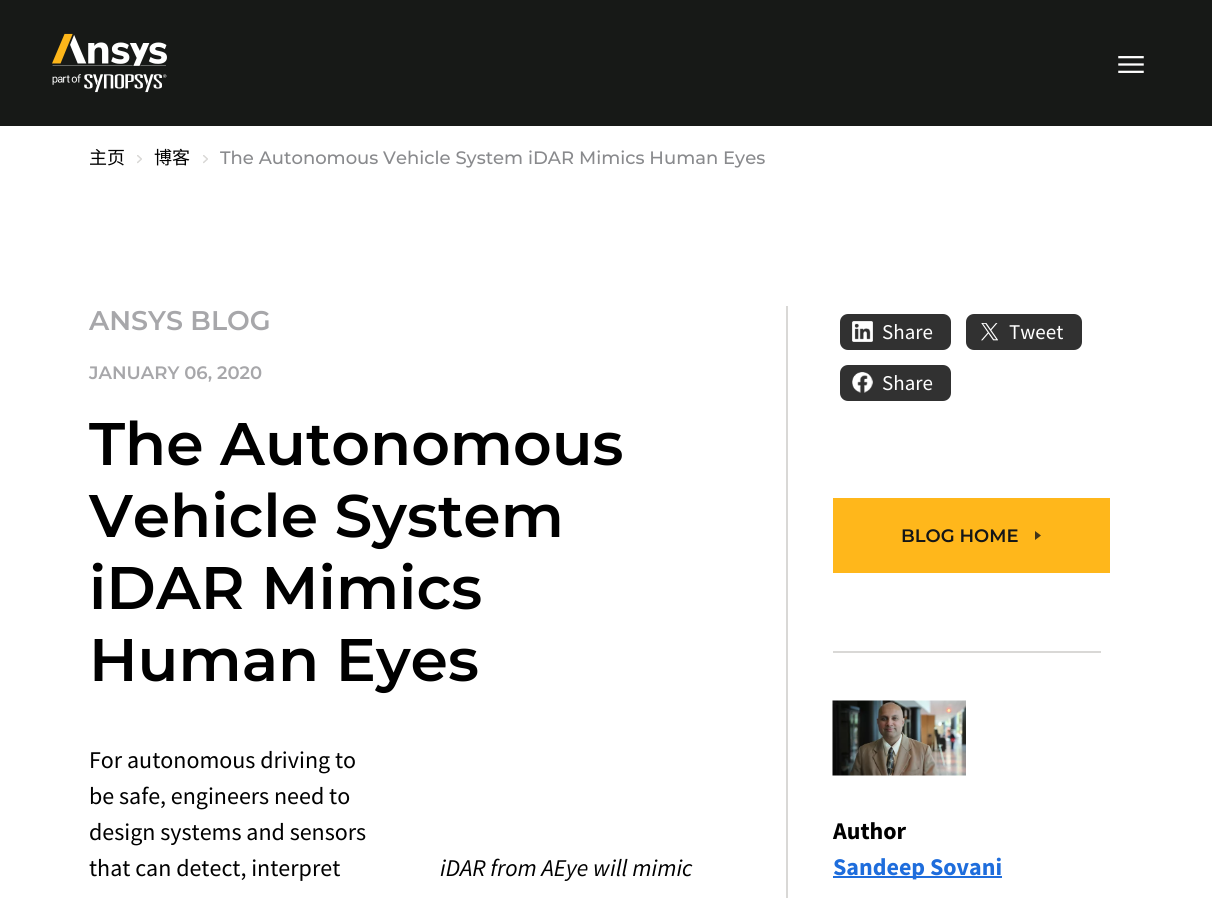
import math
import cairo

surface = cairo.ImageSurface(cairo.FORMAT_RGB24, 1212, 898)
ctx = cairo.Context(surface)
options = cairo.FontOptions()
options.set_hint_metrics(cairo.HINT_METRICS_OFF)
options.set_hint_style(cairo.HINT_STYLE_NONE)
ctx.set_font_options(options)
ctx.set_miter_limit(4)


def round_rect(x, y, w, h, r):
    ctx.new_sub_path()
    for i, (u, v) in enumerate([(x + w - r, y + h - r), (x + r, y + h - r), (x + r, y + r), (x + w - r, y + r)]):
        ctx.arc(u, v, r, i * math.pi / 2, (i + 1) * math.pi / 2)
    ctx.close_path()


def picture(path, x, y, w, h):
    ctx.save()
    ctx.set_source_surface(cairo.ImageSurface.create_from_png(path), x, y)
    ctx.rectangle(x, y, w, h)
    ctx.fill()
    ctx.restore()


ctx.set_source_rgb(1, 1, 1)
ctx.paint()
ctx.set_source_rgb(0.09, 0.098, 0.09)
ctx.rectangle(0, 0, 1212, 126)
ctx.fill()
picture("img1.png", 52, 33, 115, 60)
picture("img2.png", 1118, 56, 26, 17)
ctx.select_font_face("Noto Sans CJK SC")
ctx.set_font_size(18)
ctx.set_source_rgb(0, 0, 0)
ctx.move_to(89, 164)
ctx.show_text("主页")
picture("img3.png", 137, 155, 5, 9)
ctx.move_to(154, 164)
ctx.show_text("博客")
picture("img3.png", 203, 155, 5, 9)
ctx.select_font_face("Montserrat Medium")
ctx.set_source_rgb(0.537, 0.541, 0.553)
ctx.move_to(220, 164)
ctx.show_text("The Autonomous Vehicle System iDAR Mimics Human Eyes")
ctx.select_font_face("Montserrat SemiBold")
ctx.set_font_size(27)
ctx.set_source_rgb(0.655, 0.655, 0.667)
ctx.move_to(89, 330)
ctx.show_text("ANSYS BLOG")
ctx.set_font_size(18)
ctx.move_to(89, 379)
ctx.show_text("JANUARY 06, 2020")
ctx.set_font_size(60)
ctx.set_source_rgb(0, 0, 0)
ctx.move_to(89, 465)
ctx.show_text("The Autonomous")
ctx.move_to(89, 537)
ctx.show_text("Vehicle System")
ctx.move_to(89, 609)
ctx.show_text("iDAR Mimics")
ctx.move_to(89, 681)
ctx.show_text("Human Eyes")
ctx.select_font_face("Source Sans Pro")
ctx.set_font_size(24)
ctx.move_to(89, 768)
ctx.show_text("For autonomous driving to")
ctx.move_to(89, 804)
ctx.show_text("be safe, engineers need to")
ctx.move_to(89, 840)
ctx.show_text("design systems and sensors")
ctx.move_to(89, 876)
ctx.show_text("that can detect, interpret")
ctx.select_font_face("Source Sans Pro", cairo.FONT_SLANT_ITALIC)
ctx.move_to(440, 876)
ctx.show_text("iDAR from AEye will mimic")
ctx.set_source_rgb(0.851, 0.847, 0.839)
ctx.rectangle(786, 306, 2, 592)
ctx.fill()
ctx.set_source_rgb(0.192, 0.192, 0.192)
round_rect(840, 314, 111, 36, 8)
ctx.fill()
picture("img4.png", 852, 321, 21, 21)
ctx.select_font_face("Source Sans Pro")
ctx.set_font_size(21)
ctx.set_source_rgb(1, 1, 1)
ctx.move_to(882, 339)
ctx.show_text("Share")
ctx.set_source_rgb(0.192, 0.192, 0.192)
round_rect(966, 314, 116, 36, 8)
ctx.fill()
picture("img5.png", 981, 323, 17, 18)
ctx.set_source_rgb(1, 1, 1)
ctx.move_to(1009, 339)
ctx.show_text("Tweet")
ctx.set_source_rgb(0.192, 0.192, 0.192)
round_rect(840, 365, 111, 36, 8)
ctx.fill()
picture("img6.png", 852, 372, 21, 21)
ctx.set_source_rgb(1, 1, 1)
ctx.move_to(882, 390)
ctx.show_text("Share")
ctx.set_source_rgb(1, 0.718, 0.106)
ctx.rectangle(833, 498, 277, 75)
ctx.fill()
ctx.select_font_face("Montserrat SemiBold")
ctx.set_font_size(18)
ctx.set_source_rgb(0.082, 0.086, 0.09)
ctx.move_to(901, 542)
ctx.show_text("BLOG HOME")
ctx.set_source_rgb(0.267, 0.212, 0.094)
ctx.new_path()
ctx.move_to(1035, 540)
ctx.line_to(1035, 531)
ctx.line_to(1041, 535.5)
ctx.close_path()
ctx.fill()
ctx.set_source_rgb(0.851, 0.847, 0.839)
ctx.rectangle(833, 651, 268, 2)
ctx.fill()
picture("img7.png", 832, 700, 134, 76)
ctx.select_font_face("Source Sans Pro", cairo.FONT_SLANT_NORMAL, cairo.FONT_WEIGHT_BOLD)
ctx.set_font_size(24)
ctx.set_source_rgb(0, 0, 0)
ctx.move_to(833, 839)
ctx.show_text("Author")
ctx.set_source_rgb(0.118, 0.427, 0.863)
ctx.rectangle(833, 876, 169, 2)
ctx.fill()
ctx.move_to(833, 875)
ctx.show_text("Sandeep Sovani")
surface.write_to_png("page.png")
